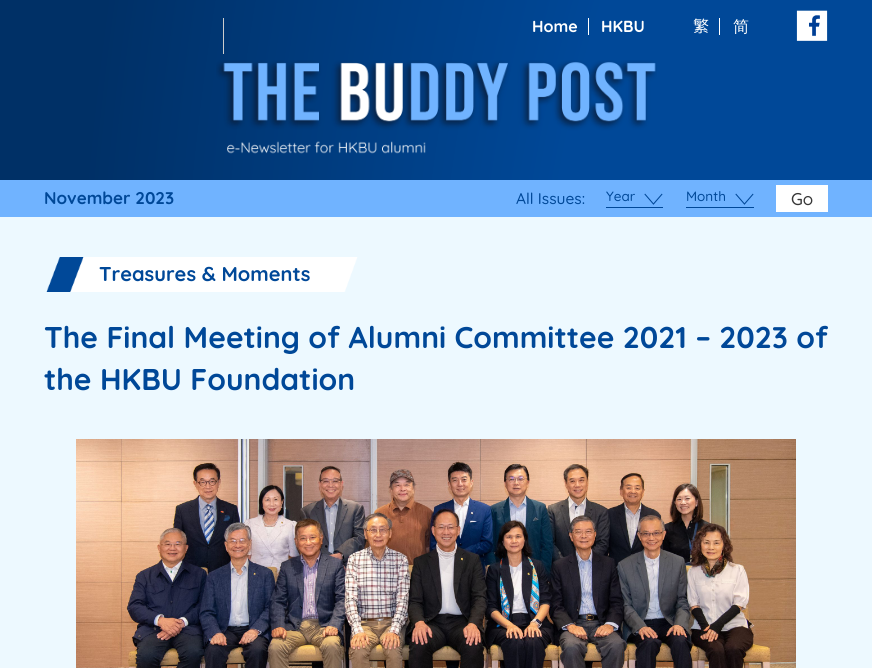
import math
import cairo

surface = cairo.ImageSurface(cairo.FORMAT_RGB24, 872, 668)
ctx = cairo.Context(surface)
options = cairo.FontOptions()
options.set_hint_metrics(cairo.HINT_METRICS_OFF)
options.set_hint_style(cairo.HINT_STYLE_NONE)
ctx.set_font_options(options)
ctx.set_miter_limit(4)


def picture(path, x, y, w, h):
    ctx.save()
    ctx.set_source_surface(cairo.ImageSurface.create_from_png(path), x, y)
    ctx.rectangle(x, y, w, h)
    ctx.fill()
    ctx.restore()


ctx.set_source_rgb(1, 1, 1)
ctx.paint()
picture("img1.png", 0, 0, 872, 180)
ctx.set_source_rgb(0.8, 0.8, 0.8)
ctx.rectangle(223, 18, 1, 36)
ctx.fill()
ctx.set_source_rgb(1, 1, 1)
ctx.rectangle(588, 18, 1, 17)
ctx.fill()
ctx.select_font_face("Quicksand", cairo.FONT_SLANT_NORMAL, cairo.FONT_WEIGHT_BOLD)
ctx.set_font_size(16)
ctx.move_to(532, 32)
ctx.show_text("Home")
ctx.move_to(601, 32)
ctx.show_text("HKBU")
ctx.rectangle(719, 18, 1, 17)
ctx.fill()
ctx.select_font_face("Noto Sans TC")
ctx.move_to(693, 32)
ctx.show_text("繁")
ctx.select_font_face("WenQuanYi Zen Hei Medium")
ctx.move_to(733, 32)
ctx.show_text("简")
picture("img2.png", 796, 10, 32, 31)
picture("img3.png", 216, 60, 441, 94)
ctx.set_source_rgb(0.439, 0.702, 1)
ctx.rectangle(0, 180, 872, 37)
ctx.fill()
ctx.select_font_face("Quicksand", cairo.FONT_SLANT_NORMAL, cairo.FONT_WEIGHT_BOLD)
ctx.set_font_size(17)
ctx.set_source_rgb(0, 0.282, 0.596)
ctx.move_to(44, 204)
ctx.show_text("November 2023")
ctx.select_font_face("Quicksand Medium")
ctx.set_font_size(15.5)
ctx.move_to(516, 204)
ctx.show_text("All Issues:")
ctx.set_font_size(13.5)
ctx.move_to(606, 201)
ctx.show_text("Year")
picture("img4.png", 644, 193, 19, 12)
ctx.rectangle(606, 207, 57, 1)
ctx.fill()
ctx.move_to(686, 201)
ctx.show_text("Month")
picture("img4.png", 735, 193, 19, 12)
ctx.rectangle(686, 207, 68, 1)
ctx.fill()
ctx.set_source_rgb(1, 1, 1)
ctx.rectangle(776, 185, 52, 27)
ctx.fill()
ctx.set_font_size(17)
ctx.set_source_rgb(0.22, 0.22, 0.22)
ctx.move_to(791, 205)
ctx.show_text("Go")
ctx.set_source_rgb(0.929, 0.976, 1)
ctx.rectangle(0, 217, 872, 451)
ctx.fill()
picture("img5.png", 46, 257, 38, 35)
ctx.set_source_rgb(1, 1, 1)
ctx.rectangle(84, 257, 251, 35)
ctx.fill()
ctx.select_font_face("Quicksand", cairo.FONT_SLANT_NORMAL, cairo.FONT_WEIGHT_BOLD)
ctx.set_font_size(20)
ctx.set_source_rgb(0, 0.282, 0.596)
ctx.move_to(99, 281)
ctx.show_text("Treasures & Moments")
picture("img6.png", 335, 257, 23, 35)
ctx.set_font_size(30)
ctx.move_to(44, 348)
ctx.show_text("The Final Meeting of Alumni Committee 2021 – 2023 of")
ctx.move_to(44, 390)
ctx.show_text("the HKBU Foundation")
picture("img7.png", 76, 439, 720, 229)
surface.write_to_png("page.png")
